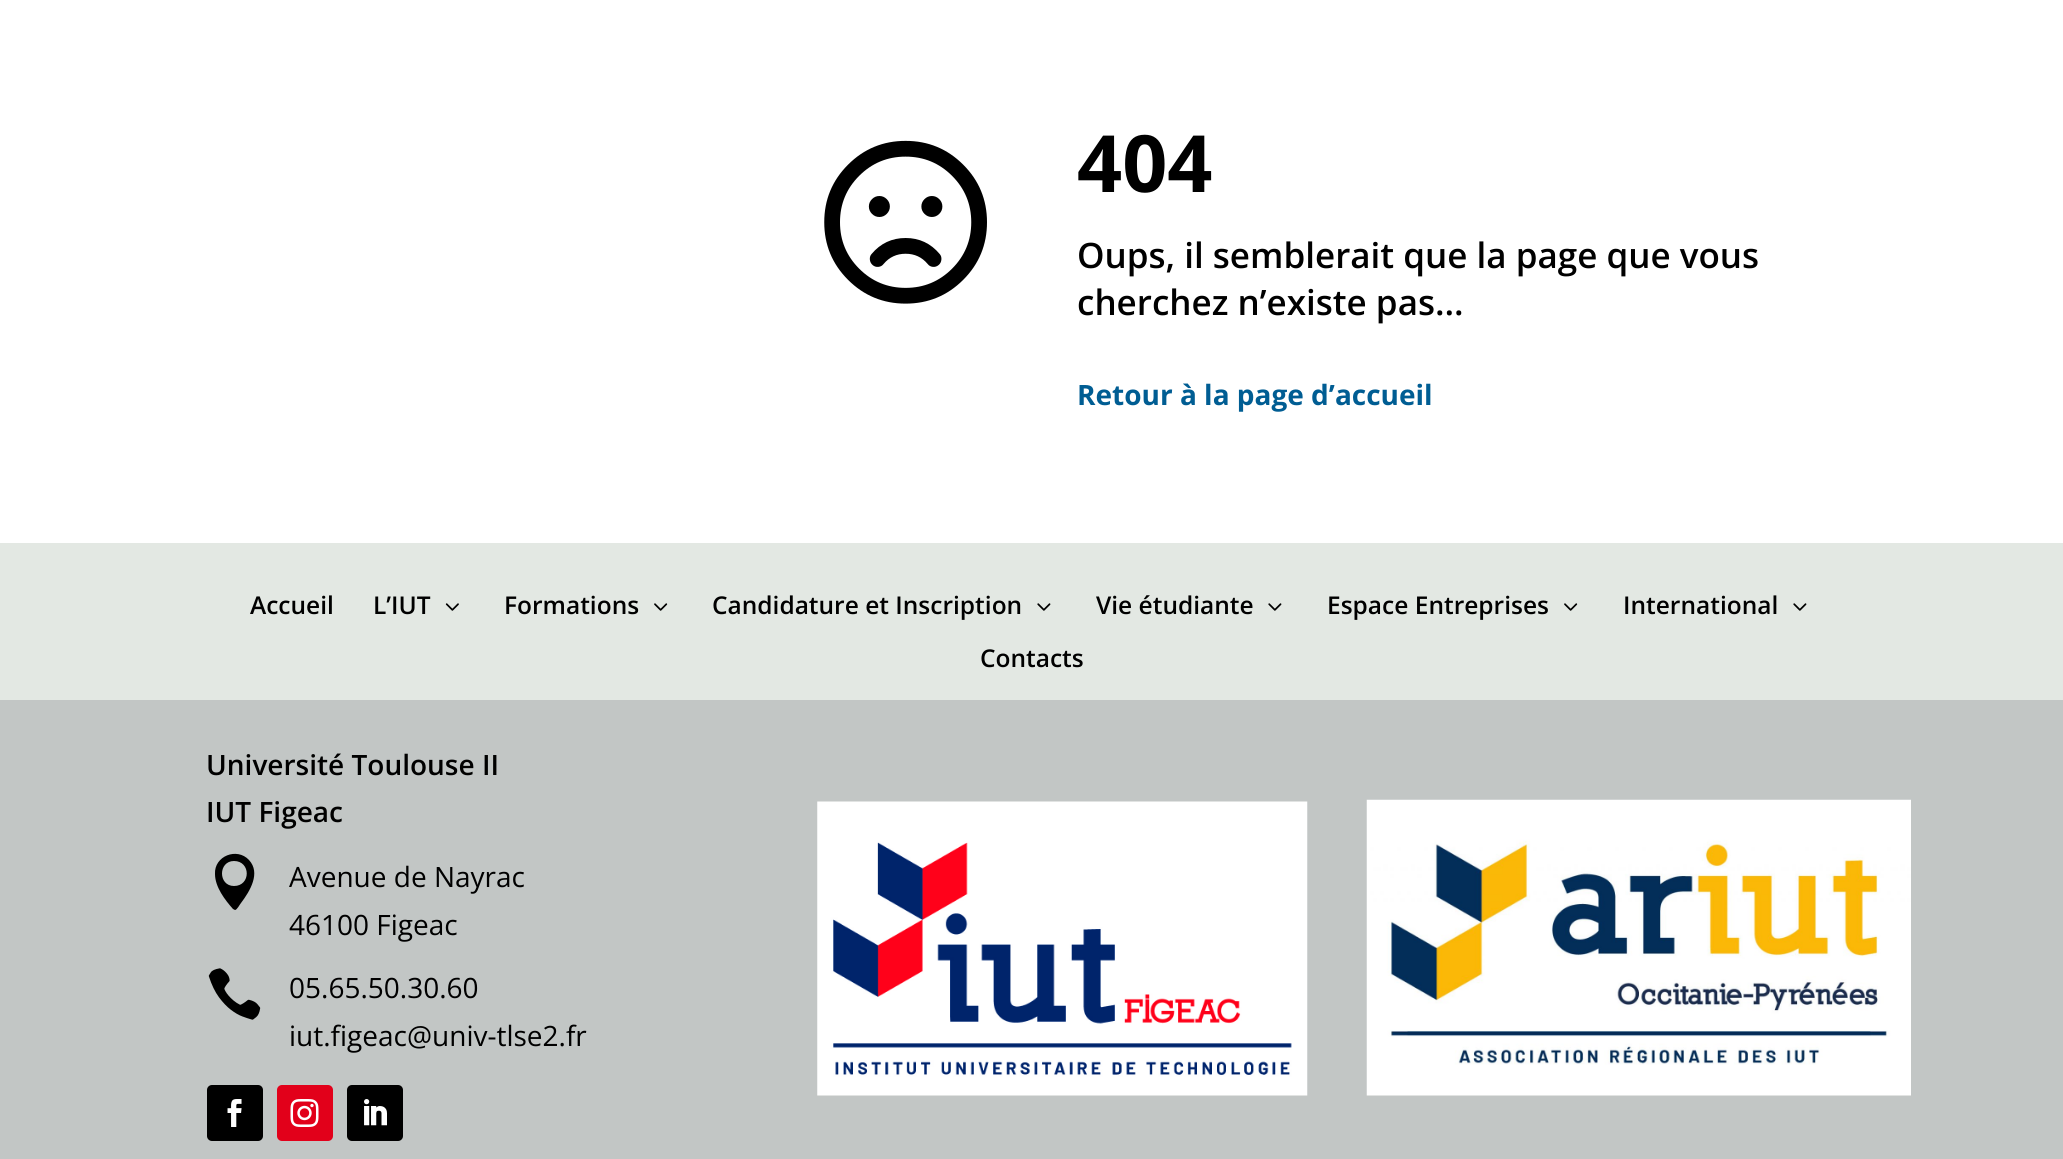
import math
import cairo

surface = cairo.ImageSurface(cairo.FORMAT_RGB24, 2063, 1159)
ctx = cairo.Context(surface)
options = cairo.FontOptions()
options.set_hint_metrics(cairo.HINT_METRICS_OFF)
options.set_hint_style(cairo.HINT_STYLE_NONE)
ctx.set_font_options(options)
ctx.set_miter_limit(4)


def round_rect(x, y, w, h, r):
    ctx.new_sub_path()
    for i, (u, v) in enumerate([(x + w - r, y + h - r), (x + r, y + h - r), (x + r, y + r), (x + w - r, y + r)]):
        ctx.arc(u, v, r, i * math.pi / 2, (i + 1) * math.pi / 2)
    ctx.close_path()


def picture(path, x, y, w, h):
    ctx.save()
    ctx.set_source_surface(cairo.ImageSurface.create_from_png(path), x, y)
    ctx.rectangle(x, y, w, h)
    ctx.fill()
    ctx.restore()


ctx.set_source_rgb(1, 1, 1)
ctx.paint()
picture("img1.png", 824, 140, 163, 164)
ctx.select_font_face("Open Sans", cairo.FONT_SLANT_NORMAL, cairo.FONT_WEIGHT_BOLD)
ctx.set_font_size(79)
ctx.set_source_rgb(0, 0, 0)
ctx.move_to(1077, 192)
ctx.show_text("404")
ctx.select_font_face("Open Sans SemiBold")
ctx.set_font_size(35)
ctx.move_to(1077, 268)
ctx.show_text("Oups, il semblerait que la page que vous")
ctx.move_to(1077, 315)
ctx.show_text("cherchez n’existe pas…")
ctx.select_font_face("Open Sans", cairo.FONT_SLANT_NORMAL, cairo.FONT_WEIGHT_BOLD)
ctx.set_font_size(28)
ctx.set_source_rgb(0, 0.365, 0.576)
ctx.move_to(1077, 405)
ctx.show_text("Retour à la page d’accueil")
ctx.set_source_rgb(0.89, 0.91, 0.89)
ctx.rectangle(0, 543, 2063, 157)
ctx.fill()
ctx.select_font_face("Open Sans SemiBold")
ctx.set_font_size(24.5)
ctx.set_source_rgb(0, 0, 0)
ctx.move_to(250, 614)
ctx.show_text("Accueil")
ctx.move_to(373, 614)
ctx.show_text("L’IUT")
picture("img2.png", 445, 603, 14, 8)
ctx.move_to(504, 614)
ctx.show_text("Formations")
picture("img3.png", 654, 603, 14, 8)
ctx.move_to(712, 614)
ctx.show_text("Candidature et Inscription")
picture("img4.png", 1037, 603, 14, 8)
ctx.move_to(1096, 614)
ctx.show_text("Vie étudiante")
picture("img4.png", 1268, 603, 14, 8)
ctx.move_to(1327, 614)
ctx.show_text("Espace Entreprises")
picture("img3.png", 1564, 603, 14, 8)
ctx.move_to(1623, 614)
ctx.show_text("International")
picture("img4.png", 1793, 603, 14, 8)
ctx.move_to(980, 667)
ctx.show_text("Contacts")
ctx.set_source_rgb(0.761, 0.776, 0.773)
ctx.rectangle(0, 700, 2063, 459)
ctx.fill()
ctx.set_font_size(28)
ctx.set_source_rgb(0, 0, 0)
ctx.move_to(206, 775)
ctx.show_text("Université Toulouse II")
ctx.move_to(206, 822)
ctx.show_text("IUT Figeac")
ctx.new_path()
ctx.move_to(233, 909)
ctx.line_to(235, 910)
ctx.curve_to(237, 910, 240, 904, 241, 903)
ctx.curve_to(250, 891, 261, 873, 249, 860)
ctx.curve_to(237, 847, 214, 856, 215, 874)
ctx.curve_to(215, 887, 225, 900, 233, 909)
ctx.close_path()
ctx.move_to(234, 861)
ctx.curve_to(251, 861, 251, 886, 234, 886)
ctx.curve_to(218, 886, 218, 861, 234, 861)
ctx.close_path()
ctx.fill()
ctx.select_font_face("Open Sans")
ctx.move_to(289, 887)
ctx.show_text("Avenue de Nayrac")
ctx.move_to(289, 935)
ctx.show_text("46100 Figeac")
picture("img5.png", 208, 968, 53, 52)
ctx.move_to(289, 998)
ctx.show_text("05.65.50.30.60")
ctx.move_to(289, 1046)
ctx.show_text("iut.figeac@univ-tlse2.fr")
round_rect(207, 1085, 56, 56, 5)
ctx.fill()
picture("img6.png", 227, 1099, 15, 28)
ctx.set_source_rgb(0.886, 0, 0.102)
round_rect(277, 1085, 56, 56, 5)
ctx.fill()
picture("img7.png", 290, 1099, 29, 28)
ctx.set_source_rgb(0, 0, 0)
round_rect(347, 1085, 56, 56, 5)
ctx.fill()
picture("img8.png", 364, 1099, 23, 27)
picture("img9.png", 817, 801, 491, 295)
picture("img10.png", 1366, 799, 545, 297)
surface.write_to_png("page.png")
